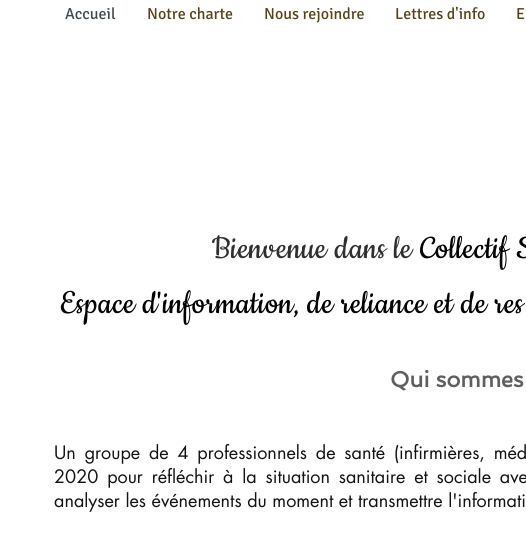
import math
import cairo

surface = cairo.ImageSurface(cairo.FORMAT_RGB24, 526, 548)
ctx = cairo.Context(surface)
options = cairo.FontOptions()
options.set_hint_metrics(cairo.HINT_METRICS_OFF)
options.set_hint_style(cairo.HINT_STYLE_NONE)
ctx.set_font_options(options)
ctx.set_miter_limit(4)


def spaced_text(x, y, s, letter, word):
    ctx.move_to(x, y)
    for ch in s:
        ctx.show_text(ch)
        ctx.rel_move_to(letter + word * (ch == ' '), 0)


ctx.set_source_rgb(1, 1, 1)
ctx.paint()
ctx.select_font_face("Signika")
ctx.set_font_size(16)
ctx.set_source_rgb(0.239, 0.29, 0.314)
ctx.move_to(65, 19)
ctx.show_text("Accueil")
ctx.set_source_rgb(0.333, 0.267, 0.071)
ctx.move_to(147, 19)
ctx.show_text("Notre charte")
ctx.move_to(264, 19)
ctx.show_text("Nous rejoindre")
ctx.move_to(395, 19)
ctx.show_text("Lettres d'info")
ctx.move_to(516, 19)
ctx.show_text("E")
ctx.select_font_face("Cookie")
ctx.set_font_size(37)
ctx.set_source_rgb(0.184, 0.184, 0.188)
spaced_text(212, 258, "Bienvenue dans le", 0.35, 0)
ctx.set_source_rgb(0, 0, 0)
spaced_text(420, 258, "Collectif S", 0.35, 0)
spaced_text(60, 313, "Espace d'information, de reliance et de res", 0.35, 0)
ctx.select_font_face("Spinnaker", cairo.FONT_SLANT_NORMAL, cairo.FONT_WEIGHT_BOLD)
ctx.set_font_size(22)
ctx.set_source_rgb(0.373, 0.369, 0.38)
ctx.move_to(390, 387)
ctx.show_text("Qui sommes")
ctx.select_font_face("futura")
ctx.set_font_size(18)
ctx.set_source_rgb(0.071, 0.071, 0.071)
spaced_text(54, 459, "Un groupe de 4 professionnels de santé (infirmières, méd", 0, 3.25)
spaced_text(54, 483, "2020 pour réfléchir à la situation sanitaire et sociale ave", 0, 3.25)
ctx.move_to(54, 507)
ctx.show_text("analyser les événements du moment et transmettre l'informati")
surface.write_to_png("page.png")
